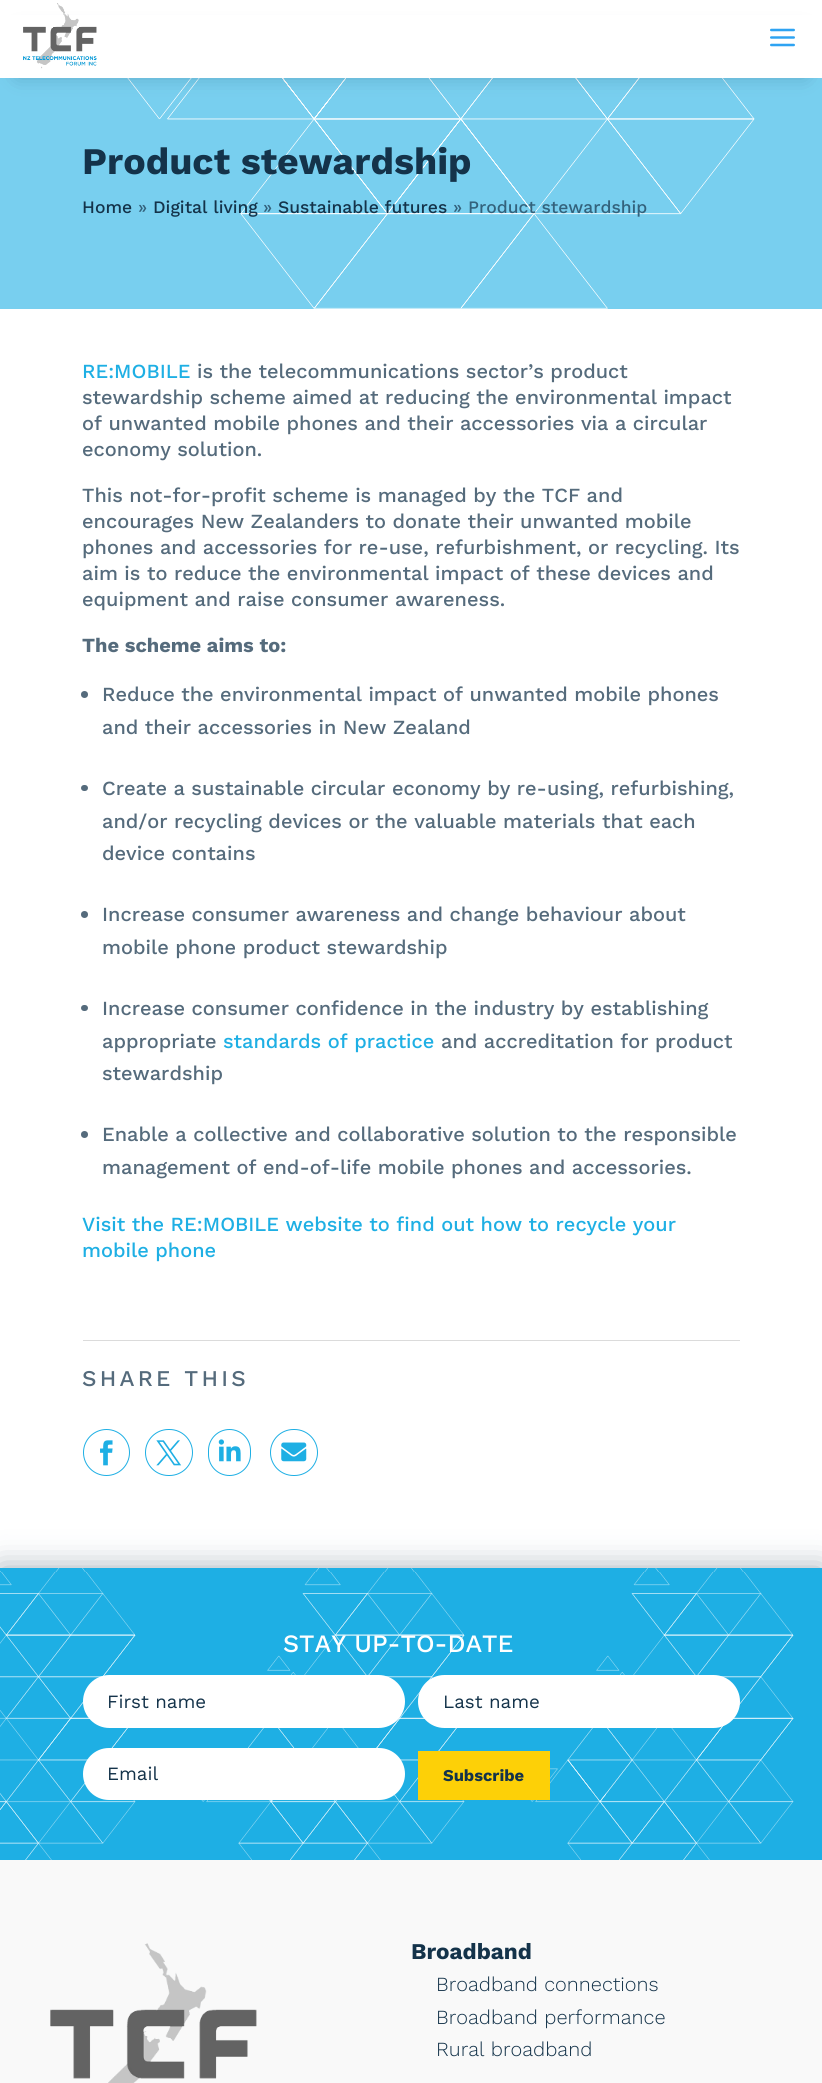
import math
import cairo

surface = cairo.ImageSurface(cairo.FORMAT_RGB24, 822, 2083)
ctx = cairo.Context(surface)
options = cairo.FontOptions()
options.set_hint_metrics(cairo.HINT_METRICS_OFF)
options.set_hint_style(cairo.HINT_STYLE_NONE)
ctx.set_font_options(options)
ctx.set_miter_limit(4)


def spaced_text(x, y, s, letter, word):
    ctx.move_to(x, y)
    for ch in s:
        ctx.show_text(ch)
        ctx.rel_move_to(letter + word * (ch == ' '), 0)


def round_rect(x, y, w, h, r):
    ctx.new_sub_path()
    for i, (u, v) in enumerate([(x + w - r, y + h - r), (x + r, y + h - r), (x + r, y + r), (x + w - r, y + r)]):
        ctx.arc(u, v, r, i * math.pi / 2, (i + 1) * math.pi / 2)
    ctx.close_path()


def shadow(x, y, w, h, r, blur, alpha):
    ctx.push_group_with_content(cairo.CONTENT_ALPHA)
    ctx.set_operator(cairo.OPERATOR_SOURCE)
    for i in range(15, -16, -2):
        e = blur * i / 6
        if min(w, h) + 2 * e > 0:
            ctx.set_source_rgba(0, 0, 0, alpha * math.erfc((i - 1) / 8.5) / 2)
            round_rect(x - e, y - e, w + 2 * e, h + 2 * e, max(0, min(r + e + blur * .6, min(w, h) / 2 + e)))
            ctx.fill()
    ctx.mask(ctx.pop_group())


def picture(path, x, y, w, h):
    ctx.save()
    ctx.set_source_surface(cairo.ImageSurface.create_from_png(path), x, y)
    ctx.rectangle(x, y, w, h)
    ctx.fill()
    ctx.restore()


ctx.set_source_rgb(1, 1, 1)
ctx.paint()
ctx.set_source_rgb(0.471, 0.812, 0.937)
ctx.rectangle(0, 78, 822, 231)
ctx.fill()
picture("img3.png", 127, 78, 628, 231)
ctx.set_source_rgb(0.082, 0.2, 0.29)
shadow(18, 33, 787, 42, 0, 10, 0.3)
ctx.set_source_rgb(1, 1, 1)
ctx.rectangle(0, 15, 822, 63)
ctx.fill()
picture("img1.png", 23, 3, 74, 66)
picture("img2.png", 770, 28, 25, 19)
ctx.select_font_face("Work Sans", cairo.FONT_SLANT_NORMAL, cairo.FONT_WEIGHT_BOLD)
ctx.set_font_size(37.5)
ctx.set_source_rgb(0.082, 0.2, 0.29)
ctx.move_to(82, 174)
ctx.show_text("Product stewardship")
ctx.select_font_face("Work Sans Medium")
ctx.set_font_size(17.5)
ctx.move_to(82, 213)
ctx.show_text("Home")
ctx.set_source_rgb(0.2, 0.384, 0.486)
ctx.move_to(138, 213)
ctx.show_text("»")
ctx.set_source_rgb(0.082, 0.2, 0.29)
ctx.move_to(153, 213)
ctx.show_text("Digital living")
ctx.set_source_rgb(0.2, 0.384, 0.486)
ctx.move_to(263, 213)
ctx.show_text("»")
ctx.set_source_rgb(0.082, 0.2, 0.29)
ctx.move_to(278, 213)
ctx.show_text("Sustainable futures")
ctx.set_source_rgb(0.2, 0.384, 0.486)
ctx.move_to(453, 213)
ctx.show_text("»")
ctx.move_to(468, 213)
ctx.show_text("Product stewardship")
ctx.set_font_size(20)
ctx.set_source_rgb(0.118, 0.686, 0.894)
ctx.move_to(82, 378)
ctx.show_text("RE:MOBILE")
ctx.set_source_rgb(0.333, 0.42, 0.486)
ctx.move_to(197, 378)
ctx.show_text("is the telecommunications sector’s product")
ctx.move_to(82, 404)
ctx.show_text("stewardship scheme aimed at reducing the environmental impact")
ctx.move_to(82, 430)
ctx.show_text("of unwanted mobile phones and their accessories via a circular")
ctx.move_to(82, 456)
ctx.show_text("economy solution.")
ctx.move_to(82, 502)
ctx.show_text("This not-for-profit scheme is managed by the TCF and")
ctx.move_to(82, 528)
ctx.show_text("encourages New Zealanders to donate their unwanted mobile")
ctx.move_to(82, 554)
ctx.show_text("phones and accessories for re-use, refurbishment, or recycling. Its")
ctx.move_to(82, 580)
ctx.show_text("aim is to reduce the environmental impact of these devices and")
ctx.move_to(82, 606)
ctx.show_text("equipment and raise consumer awareness.")
ctx.select_font_face("Work Sans", cairo.FONT_SLANT_NORMAL, cairo.FONT_WEIGHT_BOLD)
ctx.move_to(82, 652)
ctx.show_text("The scheme aims to:")
ctx.new_path()
ctx.arc(84.5, 694.5, 3.5, 0, 2 * math.pi)
ctx.fill()
ctx.select_font_face("Work Sans Medium")
ctx.move_to(102, 701)
ctx.show_text("Reduce the environmental impact of unwanted mobile phones")
ctx.move_to(102, 734)
ctx.show_text("and their accessories in New Zealand")
round_rect(81, 785, 7, 6, 3)
ctx.fill()
ctx.move_to(102, 795)
ctx.show_text("Create a sustainable circular economy by re-using, refurbishing,")
ctx.move_to(102, 828)
ctx.show_text("and/or recycling devices or the valuable materials that each")
ctx.move_to(102, 860)
ctx.show_text("device contains")
ctx.new_path()
ctx.arc(84.5, 914.5, 3.5, 0, 2 * math.pi)
ctx.fill()
ctx.move_to(102, 921)
ctx.show_text("Increase consumer awareness and change behaviour about")
ctx.move_to(102, 954)
ctx.show_text("mobile phone product stewardship")
round_rect(81, 1005, 7, 6, 3)
ctx.fill()
ctx.move_to(102, 1015)
ctx.show_text("Increase consumer confidence in the industry by establishing")
ctx.move_to(102, 1048)
ctx.show_text("appropriate")
ctx.set_source_rgb(0.118, 0.686, 0.894)
ctx.move_to(223, 1048)
ctx.show_text("standards of practice")
ctx.set_source_rgb(0.333, 0.42, 0.486)
ctx.move_to(441, 1048)
ctx.show_text("and accreditation for product")
ctx.move_to(102, 1080)
ctx.show_text("stewardship")
ctx.new_path()
ctx.arc(84.5, 1134.5, 3.5, 0, 2 * math.pi)
ctx.fill()
ctx.move_to(102, 1141)
ctx.show_text("Enable a collective and collaborative solution to the responsible")
ctx.move_to(102, 1174)
ctx.show_text("management of end-of-life mobile phones and accessories.")
ctx.set_source_rgb(0.118, 0.686, 0.894)
ctx.move_to(82, 1231)
ctx.show_text("Visit the RE:MOBILE website to find out how to recycle your")
ctx.move_to(82, 1257)
ctx.show_text("mobile phone")
ctx.set_source_rgb(0.859, 0.859, 0.859)
ctx.rectangle(83, 1340, 657, 1)
ctx.fill()
ctx.set_font_size(22.5)
ctx.set_source_rgb(0.333, 0.42, 0.486)
spaced_text(82, 1386, "SHARE THIS", 3.25, 0)
ctx.new_path()
ctx.arc(106.5, 1452.5, 23, 0, 2 * math.pi)
ctx.set_source_rgb(0.118, 0.686, 0.894)
ctx.set_line_width(1)
ctx.stroke()
picture("img4.png", 100, 1440, 13, 26)
round_rect(145.5, 1429.5, 47, 46, 23)
ctx.stroke()
picture("img5.png", 156, 1440, 26, 26)
round_rect(208.5, 1429.5, 42, 46, 21)
ctx.stroke()
picture("img6.png", 218, 1439, 23, 23)
round_rect(270.5, 1429.5, 47, 46, 23)
ctx.stroke()
picture("img7.png", 281, 1442, 26, 20)
ctx.set_source_rgb(0.082, 0.2, 0.29)
shadow(0, 1568, 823, 292, 0, 15.5, 0.4)
ctx.set_source_rgb(0.118, 0.686, 0.894)
ctx.rectangle(0, 1568, 822, 292)
ctx.fill()
picture("img8.png", 0, 1568, 794, 292)
ctx.set_font_size(25)
ctx.set_source_rgb(1, 1, 1)
ctx.move_to(283, 1652)
ctx.show_text("STAY UP-TO-DATE")
round_rect(83, 1675, 322, 53, 26.5)
ctx.fill()
ctx.select_font_face("Work Sans")
ctx.set_font_size(18.75)
ctx.set_source_rgb(0.082, 0.2, 0.29)
ctx.move_to(107, 1708)
ctx.show_text("First name")
ctx.set_source_rgb(1, 1, 1)
round_rect(418, 1675, 322, 53, 26.5)
ctx.fill()
ctx.set_source_rgb(0.082, 0.2, 0.29)
ctx.move_to(443, 1708)
ctx.show_text("Last name")
ctx.set_source_rgb(1, 1, 1)
round_rect(83, 1748, 322, 52, 26)
ctx.fill()
ctx.set_source_rgb(0.082, 0.2, 0.29)
ctx.move_to(107, 1780)
ctx.show_text("Email")
ctx.set_source_rgb(0.992, 0.816, 0.031)
ctx.rectangle(418, 1751, 132, 49)
ctx.fill()
ctx.select_font_face("Work Sans", cairo.FONT_SLANT_NORMAL, cairo.FONT_WEIGHT_BOLD)
ctx.set_font_size(16.5)
ctx.set_source_rgb(0.082, 0.2, 0.29)
ctx.move_to(443, 1781)
ctx.show_text("Subscribe")
ctx.set_source_rgb(0.973, 0.973, 0.973)
ctx.rectangle(0, 1860, 822, 223)
ctx.fill()
picture("img9.png", 50, 1943, 207, 140)
ctx.set_font_size(22.5)
ctx.set_source_rgb(0.082, 0.2, 0.29)
ctx.move_to(411, 1959)
ctx.show_text("Broadband")
ctx.select_font_face("Work Sans Light")
ctx.set_font_size(20)
ctx.move_to(436, 1991)
ctx.show_text("Broadband connections")
ctx.move_to(436, 2024)
ctx.show_text("Broadband performance")
ctx.move_to(436, 2056)
ctx.show_text("Rural broadband")
surface.write_to_png("page.png")
